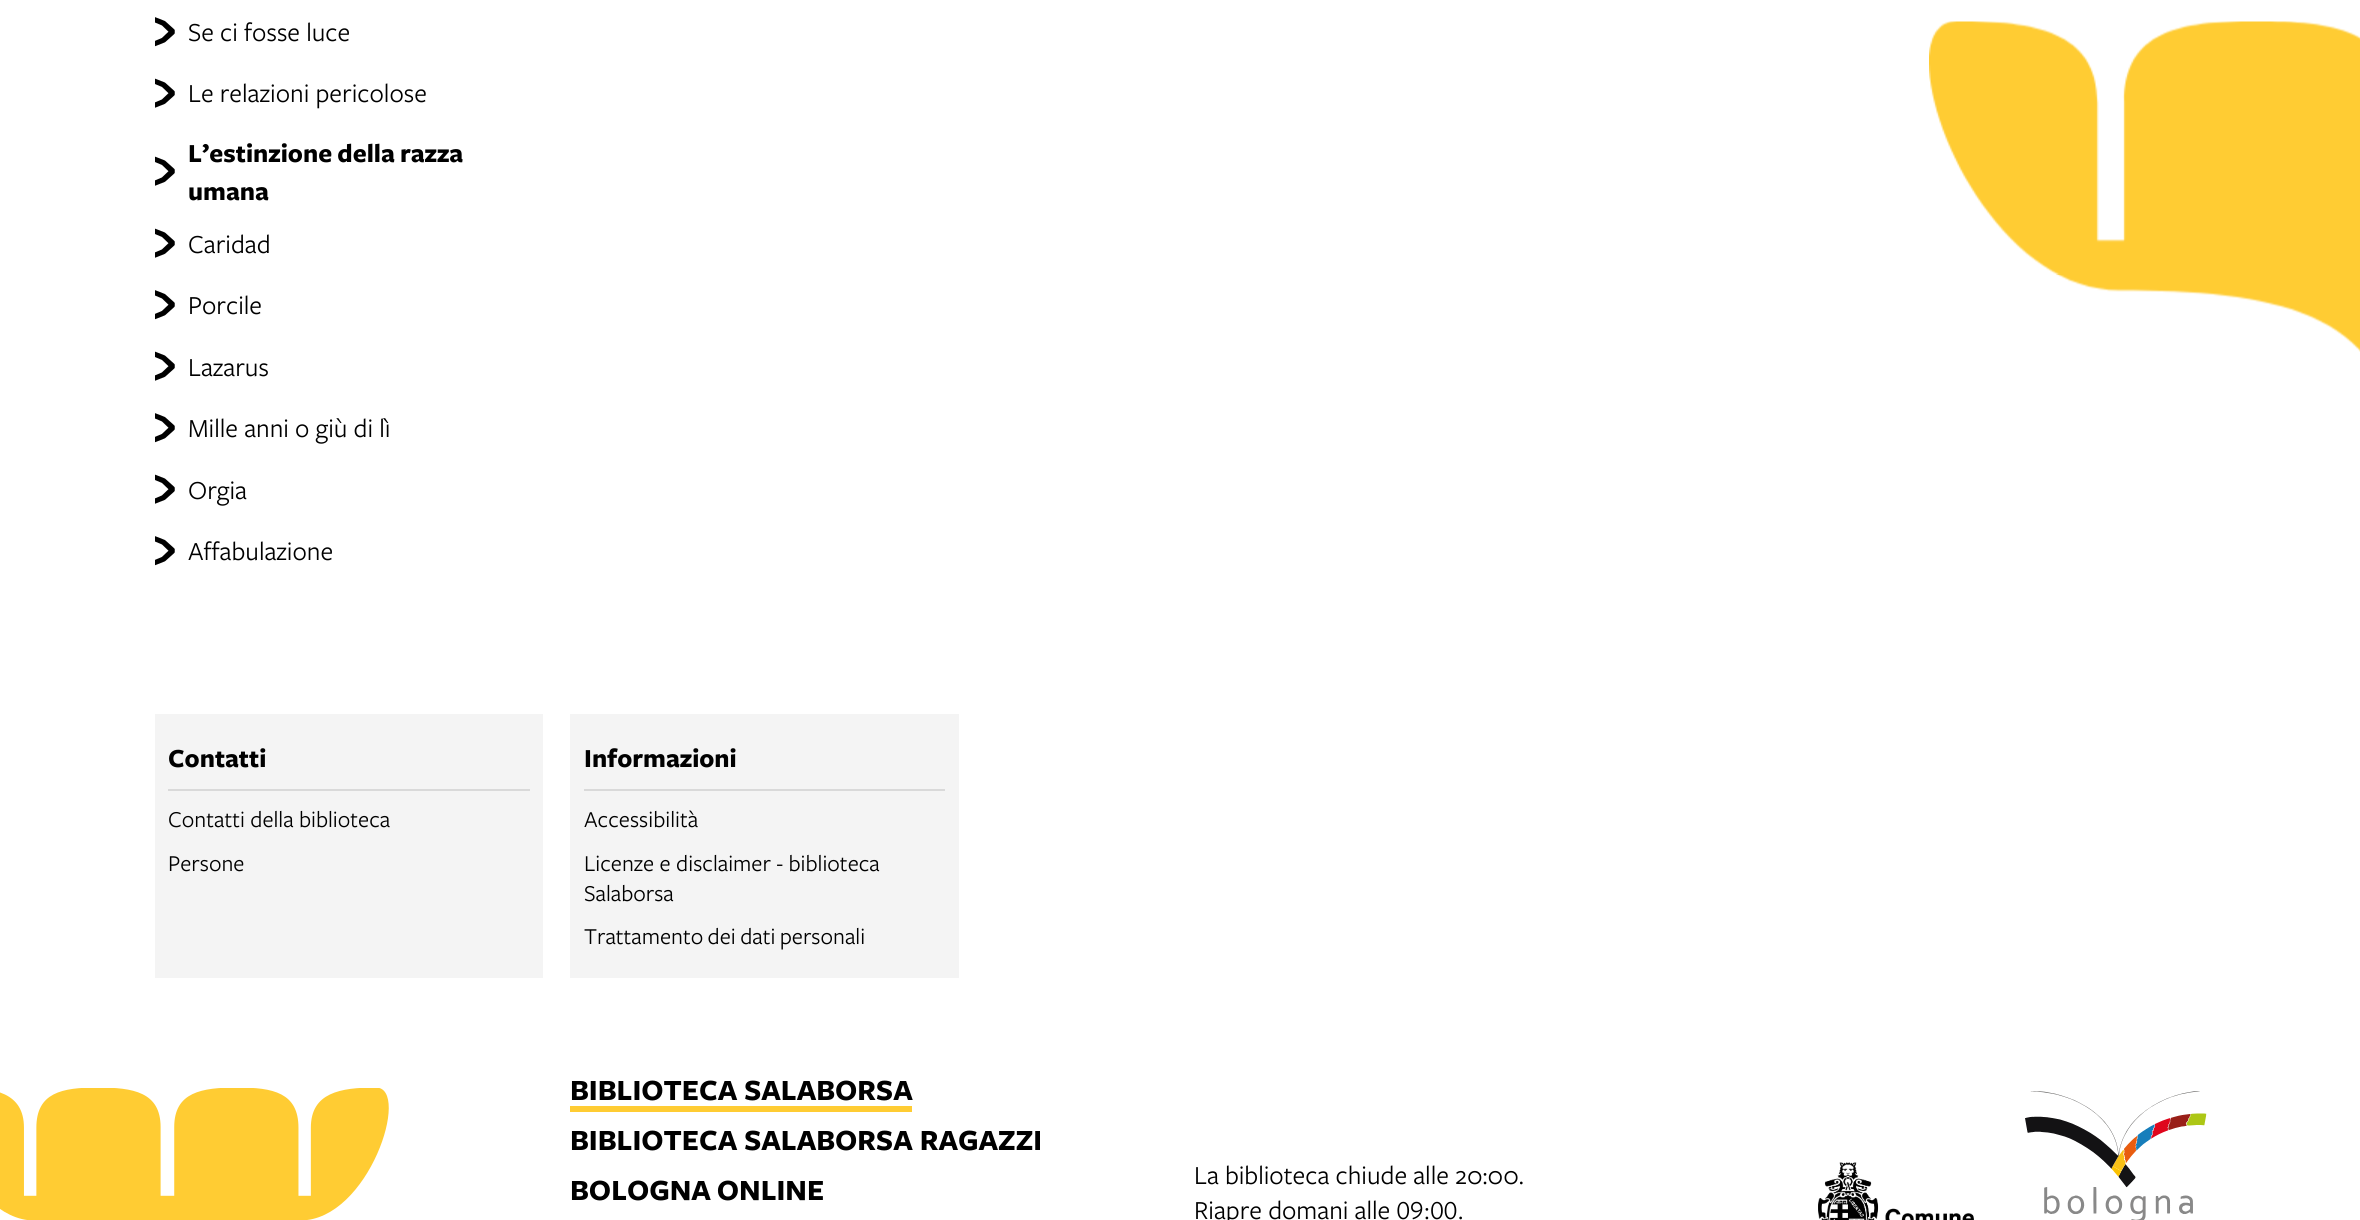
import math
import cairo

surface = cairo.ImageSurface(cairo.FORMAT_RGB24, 2360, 1220)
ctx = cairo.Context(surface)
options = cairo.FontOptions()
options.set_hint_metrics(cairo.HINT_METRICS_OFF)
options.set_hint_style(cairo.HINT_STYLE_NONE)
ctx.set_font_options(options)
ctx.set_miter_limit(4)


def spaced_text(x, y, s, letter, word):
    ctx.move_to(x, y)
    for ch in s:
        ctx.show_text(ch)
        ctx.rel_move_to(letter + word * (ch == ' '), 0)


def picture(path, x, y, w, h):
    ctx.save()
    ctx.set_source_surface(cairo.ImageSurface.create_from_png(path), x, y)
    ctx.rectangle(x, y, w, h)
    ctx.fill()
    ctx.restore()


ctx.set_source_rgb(1, 1, 1)
ctx.paint()
picture("img1.png", 155, 17, 20, 30)
ctx.select_font_face("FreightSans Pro")
ctx.set_font_size(27)
ctx.set_source_rgb(0, 0, 0)
ctx.move_to(188, 41)
ctx.show_text("Se ci fosse luce")
picture("img2.png", 155, 78, 20, 30)
ctx.move_to(188, 102)
ctx.show_text("Le relazioni pericolose")
ctx.select_font_face("FreightSans Pro", cairo.FONT_SLANT_NORMAL, cairo.FONT_WEIGHT_BOLD)
spaced_text(188, 162, "L’estinzione della razza", 0, -1)
picture("img2.png", 155, 156, 20, 30)
ctx.move_to(188, 200)
ctx.show_text("umana")
picture("img2.png", 155, 228, 20, 30)
ctx.select_font_face("FreightSans Pro")
ctx.move_to(188, 253)
ctx.show_text("Caridad")
picture("img1.png", 155, 290, 20, 30)
ctx.move_to(188, 314)
ctx.show_text("Porcile")
picture("img2.png", 155, 351, 20, 30)
ctx.move_to(188, 376)
ctx.show_text("Lazarus")
picture("img1.png", 155, 413, 20, 30)
ctx.move_to(188, 437)
ctx.show_text("Mille anni o giù di lì")
picture("img2.png", 155, 474, 20, 30)
ctx.move_to(188, 499)
ctx.show_text("Orgia")
picture("img1.png", 155, 536, 20, 30)
ctx.move_to(188, 560)
ctx.show_text("Affabulazione")
picture("img3.png", 1929, 21, 431, 331)
ctx.set_source_rgb(0.957, 0.957, 0.957)
ctx.rectangle(155, 714, 388, 264)
ctx.fill()
ctx.set_source_rgb(0.851, 0.851, 0.851)
ctx.rectangle(168, 789, 362, 2)
ctx.fill()
ctx.select_font_face("FreightSans Pro", cairo.FONT_SLANT_NORMAL, cairo.FONT_WEIGHT_BOLD)
ctx.set_source_rgb(0, 0, 0)
ctx.move_to(168, 767)
ctx.show_text("Contatti")
ctx.select_font_face("FreightSans Pro")
ctx.set_font_size(23.6)
ctx.move_to(168, 827)
ctx.show_text("Contatti della biblioteca")
ctx.move_to(168, 871)
ctx.show_text("Persone")
ctx.set_source_rgb(0.957, 0.957, 0.957)
ctx.rectangle(570, 714, 389, 264)
ctx.fill()
ctx.set_source_rgb(0.851, 0.851, 0.851)
ctx.rectangle(584, 789, 361, 2)
ctx.fill()
ctx.select_font_face("FreightSans Pro", cairo.FONT_SLANT_NORMAL, cairo.FONT_WEIGHT_BOLD)
ctx.set_font_size(27)
ctx.set_source_rgb(0, 0, 0)
ctx.move_to(584, 767)
ctx.show_text("Informazioni")
ctx.select_font_face("FreightSans Pro")
ctx.set_font_size(23.6)
ctx.move_to(584, 827)
ctx.show_text("Accessibilità")
ctx.move_to(584, 871)
ctx.show_text("Licenze e disclaimer - biblioteca")
ctx.move_to(584, 901)
ctx.show_text("Salaborsa")
spaced_text(584, 944, "Trattamento dei dati personali", 0, -1)
picture("img4.png", 0, 1088, 389, 132)
ctx.set_source_rgb(1, 0.8, 0.2)
ctx.rectangle(570, 1106, 342, 6)
ctx.fill()
ctx.select_font_face("FreightSans Pro", cairo.FONT_SLANT_NORMAL, cairo.FONT_WEIGHT_BOLD)
ctx.set_font_size(30.4)
ctx.set_source_rgb(0, 0, 0)
ctx.move_to(570, 1100)
ctx.show_text("BIBLIOTECA SALABORSA")
ctx.move_to(570, 1150)
ctx.show_text("BIBLIOTECA SALABORSA RAGAZZI")
spaced_text(570, 1200, "BOLOGNA ONLINE", 0, -1)
ctx.select_font_face("FreightSans Pro")
ctx.set_font_size(27)
ctx.move_to(1194, 1184)
ctx.show_text("La biblioteca chiude alle 20:00.")
ctx.select_font_face("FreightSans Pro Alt")
ctx.move_to(1194, 1219)
ctx.show_text("Riapre domani alle 09:00.")
picture("img5.png", 1818, 1162, 156, 58)
picture("img6.png", 2025, 1091, 182, 129)
surface.write_to_png("page.png")
